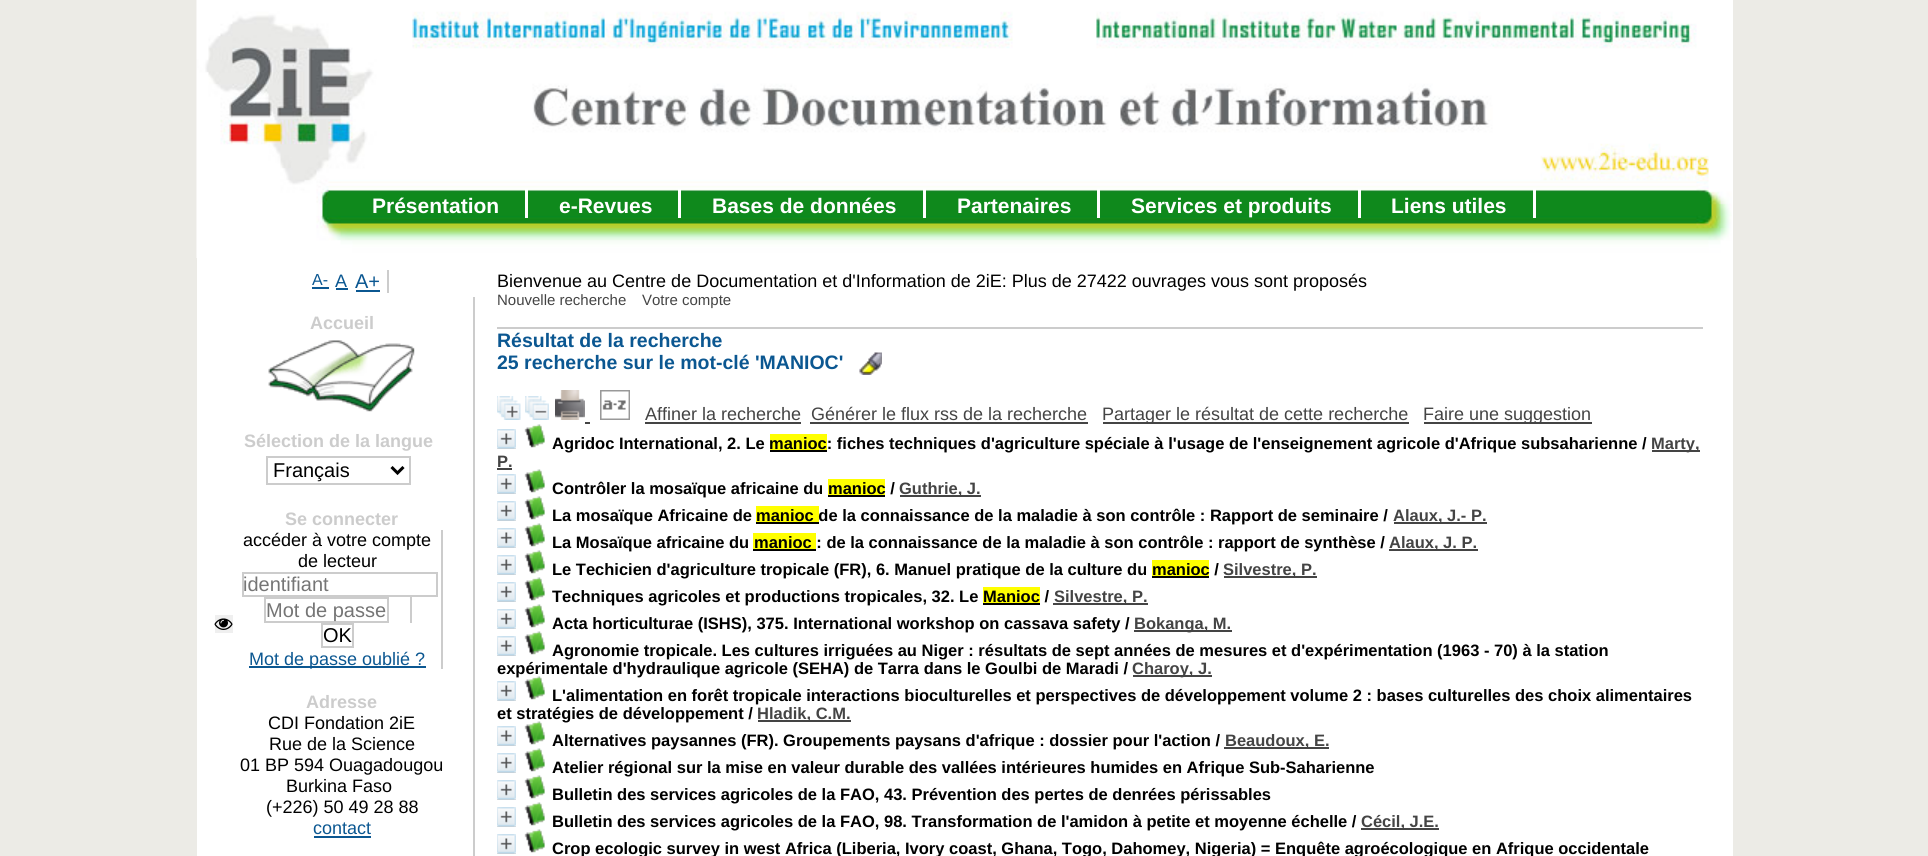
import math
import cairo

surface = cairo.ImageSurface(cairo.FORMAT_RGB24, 1928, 856)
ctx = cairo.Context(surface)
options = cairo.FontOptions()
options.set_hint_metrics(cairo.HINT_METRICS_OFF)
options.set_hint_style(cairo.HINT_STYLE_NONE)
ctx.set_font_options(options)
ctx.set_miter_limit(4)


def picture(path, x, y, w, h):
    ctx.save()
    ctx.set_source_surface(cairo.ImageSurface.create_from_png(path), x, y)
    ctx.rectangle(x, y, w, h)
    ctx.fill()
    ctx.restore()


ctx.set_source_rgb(0.922, 0.918, 0.902)
ctx.paint()
ctx.set_source_rgb(1, 1, 1)
ctx.rectangle(197, 0, 1536, 856)
ctx.fill()
ctx.set_source_rgb(0.8, 0.8, 0.8)
ctx.rectangle(387, 270, 2, 23)
ctx.fill()
ctx.select_font_face("Liberation Sans")
ctx.set_font_size(16)
ctx.set_source_rgb(0.043, 0.341, 0.569)
ctx.move_to(312, 285)
ctx.show_text("A-")
ctx.rectangle(312, 287, 17, 2)
ctx.fill()
ctx.set_font_size(18)
ctx.move_to(335, 287)
ctx.show_text("A")
ctx.rectangle(336, 288, 12, 2)
ctx.fill()
ctx.set_font_size(20)
ctx.move_to(355, 288)
ctx.show_text("A+")
ctx.rectangle(356, 290, 24, 2)
ctx.fill()
ctx.set_source_rgb(0.8, 0.8, 0.8)
ctx.rectangle(473, 297, 2, 559)
ctx.fill()
ctx.select_font_face("Liberation Sans", cairo.FONT_SLANT_NORMAL, cairo.FONT_WEIGHT_BOLD)
ctx.set_font_size(18)
ctx.move_to(310, 329)
ctx.show_text("Accueil")
picture("img1.png", 268, 340, 147, 72)
ctx.move_to(244, 447)
ctx.show_text("Sélection de la langue")
ctx.rectangle(267, 457, 143, 27)
ctx.stroke()
ctx.new_path()
ctx.move_to(391.5, 467)
ctx.line_to(397.5, 473)
ctx.line_to(403.5, 467)
ctx.set_source_rgb(0, 0, 0)
ctx.set_line_width(3)
ctx.stroke()
ctx.select_font_face("Liberation Sans")
ctx.set_font_size(20)
ctx.move_to(273, 477)
ctx.show_text("Français")
ctx.select_font_face("Liberation Sans", cairo.FONT_SLANT_NORMAL, cairo.FONT_WEIGHT_BOLD)
ctx.set_font_size(18)
ctx.set_source_rgb(0.8, 0.8, 0.8)
ctx.move_to(285, 525)
ctx.show_text("Se connecter")
ctx.rectangle(441, 530, 2, 139)
ctx.fill()
ctx.select_font_face("Liberation Sans")
ctx.set_source_rgb(0, 0, 0)
ctx.move_to(243, 546)
ctx.show_text("accéder à votre compte")
ctx.move_to(298, 567)
ctx.show_text("de lecteur")
ctx.rectangle(243, 573, 194, 23)
ctx.set_source_rgb(0.8, 0.8, 0.8)
ctx.set_line_width(2)
ctx.stroke()
ctx.set_font_size(20)
ctx.set_source_rgb(0.459, 0.459, 0.459)
ctx.move_to(243, 591)
ctx.show_text("identifiant")
ctx.set_source_rgb(0.8, 0.8, 0.8)
ctx.rectangle(410, 597, 2, 26)
ctx.fill()
ctx.rectangle(265, 598, 123, 24)
ctx.stroke()
ctx.set_source_rgb(0.459, 0.459, 0.459)
ctx.move_to(266, 617)
ctx.show_text("Mot de passe")
ctx.set_source_rgb(0.937, 0.937, 0.937)
ctx.rectangle(215, 615, 18, 18)
ctx.fill()
picture("img2.png", 214, 618, 19, 12)
ctx.rectangle(322, 624, 31, 23)
ctx.set_source_rgb(0.8, 0.8, 0.8)
ctx.stroke()
ctx.set_source_rgb(0, 0, 0)
ctx.move_to(323, 642)
ctx.show_text("OK")
ctx.set_source_rgb(0.043, 0.341, 0.569)
ctx.rectangle(249, 666, 177, 2)
ctx.fill()
ctx.set_font_size(18)
ctx.move_to(249, 665)
ctx.show_text("Mot de passe oublié ?")
ctx.select_font_face("Liberation Sans", cairo.FONT_SLANT_NORMAL, cairo.FONT_WEIGHT_BOLD)
ctx.set_source_rgb(0.8, 0.8, 0.8)
ctx.move_to(306, 708)
ctx.show_text("Adresse")
ctx.select_font_face("Liberation Sans")
ctx.set_source_rgb(0, 0, 0)
ctx.move_to(268, 729)
ctx.show_text("CDI Fondation 2iE")
ctx.move_to(269, 750)
ctx.show_text("Rue de la Science")
ctx.move_to(240, 771)
ctx.show_text("01 BP 594 Ouagadougou")
ctx.move_to(286, 792)
ctx.show_text("Burkina Faso")
ctx.move_to(266, 813)
ctx.show_text("(+226) 50 49 28 88")
ctx.set_source_rgb(0.043, 0.341, 0.569)
ctx.move_to(313, 834)
ctx.show_text("contact")
ctx.rectangle(314, 836, 57, 2)
ctx.fill()
picture("img3.png", 196, 0, 1536, 258)
ctx.select_font_face("Liberation Sans", cairo.FONT_SLANT_NORMAL, cairo.FONT_WEIGHT_BOLD)
ctx.set_font_size(21)
ctx.set_source_rgb(1, 1, 1)
ctx.move_to(372, 213)
ctx.show_text("Présentation")
ctx.rectangle(525, 189, 3, 29)
ctx.fill()
ctx.move_to(559, 213)
ctx.show_text("e-Revues")
ctx.rectangle(678, 189, 3, 29)
ctx.fill()
ctx.move_to(712, 213)
ctx.show_text("Bases de données")
ctx.rectangle(923, 189, 3, 29)
ctx.fill()
ctx.move_to(957, 213)
ctx.show_text("Partenaires")
ctx.rectangle(1097, 189, 3, 29)
ctx.fill()
ctx.move_to(1131, 213)
ctx.show_text("Services et produits")
ctx.rectangle(1358, 189, 3, 29)
ctx.fill()
ctx.move_to(1391, 213)
ctx.show_text("Liens utiles")
ctx.rectangle(1533, 189, 3, 29)
ctx.fill()
ctx.set_source_rgb(0.8, 0.8, 0.8)
ctx.rectangle(497, 327, 1206, 2)
ctx.fill()
ctx.select_font_face("Liberation Sans")
ctx.set_font_size(15)
ctx.set_source_rgb(0.267, 0.267, 0.267)
ctx.move_to(497, 305)
ctx.show_text("Nouvelle recherche")
ctx.move_to(642, 305)
ctx.show_text("Votre compte")
ctx.select_font_face("Liberation Sans", cairo.FONT_SLANT_NORMAL, cairo.FONT_WEIGHT_BOLD)
ctx.set_font_size(19.5)
ctx.set_source_rgb(0.043, 0.341, 0.569)
ctx.move_to(497, 347)
ctx.show_text("Résultat de la recherche")
ctx.move_to(497, 369)
ctx.show_text("25 recherche sur le mot-clé 'MANIOC'")
picture("img4.png", 859, 352, 23, 23)
picture("img5.png", 497, 396, 24, 24)
picture("img6.png", 525, 396, 24, 24)
picture("img7.png", 555, 390, 30, 30)
ctx.set_source_rgb(0.267, 0.267, 0.267)
ctx.rectangle(585, 422, 5, 2)
ctx.fill()
picture("img8.png", 600, 390, 30, 30)
ctx.select_font_face("Liberation Sans")
ctx.set_font_size(18)
ctx.move_to(645, 420)
ctx.show_text("Affiner la recherche")
ctx.rectangle(645, 422, 156, 2)
ctx.fill()
ctx.move_to(811, 420)
ctx.show_text("Générer le flux rss de la recherche")
ctx.rectangle(810, 422, 278, 2)
ctx.fill()
ctx.rectangle(1103, 422, 306, 2)
ctx.fill()
ctx.move_to(1102, 420)
ctx.show_text("Partager le résultat de cette recherche")
ctx.rectangle(1424, 422, 168, 2)
ctx.fill()
ctx.move_to(1423, 420)
ctx.show_text("Faire une suggestion")
ctx.set_source_rgb(0.8, 0.8, 0.8)
ctx.rectangle(497, 448, 19, 1)
ctx.fill()
picture("img9.png", 497, 429, 19, 20)
picture("img10.png", 524, 424, 21, 24)
ctx.select_font_face("Liberation Sans", cairo.FONT_SLANT_NORMAL, cairo.FONT_WEIGHT_BOLD)
ctx.set_font_size(16.5)
ctx.set_source_rgb(0, 0, 0)
ctx.move_to(552, 449)
ctx.show_text("Agridoc International, 2. Le")
ctx.set_source_rgb(1, 1, 0)
ctx.rectangle(770, 434, 57, 16)
ctx.fill()
ctx.set_source_rgb(0, 0, 0)
ctx.rectangle(770, 450, 57, 2)
ctx.fill()
ctx.move_to(769, 449)
ctx.show_text("manioc: fiches techniques d'agriculture spéciale à l'usage de l'enseignement agricole d'Afrique subsaharienne /")
ctx.set_source_rgb(0.267, 0.267, 0.267)
ctx.rectangle(1652, 450, 48, 2)
ctx.fill()
ctx.move_to(1651, 449)
ctx.show_text("Marty,")
ctx.move_to(497, 467)
ctx.show_text("P.")
ctx.rectangle(497, 468, 15, 2)
ctx.fill()
ctx.set_source_rgb(0.8, 0.8, 0.8)
ctx.rectangle(497, 493, 19, 1)
ctx.fill()
picture("img9.png", 497, 474, 19, 20)
picture("img10.png", 524, 469, 21, 24)
ctx.set_source_rgb(0, 0, 0)
ctx.move_to(552, 494)
ctx.show_text("Contrôler la mosaïque africaine du")
ctx.set_source_rgb(1, 1, 0)
ctx.rectangle(828, 479, 57, 16)
ctx.fill()
ctx.set_source_rgb(0, 0, 0)
ctx.move_to(828, 494)
ctx.show_text("manioc /")
ctx.rectangle(828, 495, 57, 2)
ctx.fill()
ctx.set_source_rgb(0.267, 0.267, 0.267)
ctx.rectangle(900, 495, 81, 2)
ctx.fill()
ctx.move_to(899, 494)
ctx.show_text("Guthrie, J.")
ctx.set_source_rgb(0.8, 0.8, 0.8)
ctx.rectangle(497, 520, 19, 1)
ctx.fill()
picture("img9.png", 497, 501, 19, 20)
picture("img10.png", 524, 496, 21, 24)
ctx.set_source_rgb(0, 0, 0)
ctx.move_to(552, 521)
ctx.show_text("La mosaïque Africaine de")
ctx.set_source_rgb(1, 1, 0)
ctx.rectangle(756, 506, 63, 16)
ctx.fill()
ctx.set_source_rgb(0, 0, 0)
ctx.rectangle(756, 522, 63, 2)
ctx.fill()
ctx.move_to(756, 521)
ctx.show_text("manioc de la connaissance de la maladie à son contrôle : Rapport de seminaire /")
ctx.set_source_rgb(0.267, 0.267, 0.267)
ctx.rectangle(1394, 522, 93, 2)
ctx.fill()
ctx.move_to(1393, 521)
ctx.show_text("Alaux, J.- P.")
ctx.set_source_rgb(0.8, 0.8, 0.8)
ctx.rectangle(497, 547, 19, 1)
ctx.fill()
picture("img9.png", 497, 528, 19, 20)
picture("img10.png", 524, 523, 21, 24)
ctx.set_source_rgb(0, 0, 0)
ctx.move_to(552, 548)
ctx.show_text("La Mosaïque africaine du")
ctx.set_source_rgb(1, 1, 0)
ctx.rectangle(753, 533, 63, 16)
ctx.fill()
ctx.set_source_rgb(0, 0, 0)
ctx.rectangle(753, 549, 63, 2)
ctx.fill()
ctx.move_to(754, 548)
ctx.show_text("manioc : de la connaissance de la maladie à son contrôle : rapport de synthèse /")
ctx.set_source_rgb(0.267, 0.267, 0.267)
ctx.rectangle(1389, 549, 89, 2)
ctx.fill()
ctx.move_to(1389, 548)
ctx.show_text("Alaux, J. P.")
ctx.set_source_rgb(0.8, 0.8, 0.8)
ctx.rectangle(497, 574, 19, 1)
ctx.fill()
picture("img9.png", 497, 555, 19, 20)
picture("img10.png", 524, 550, 21, 24)
ctx.set_source_rgb(0, 0, 0)
ctx.move_to(552, 575)
ctx.show_text("Le Techicien d'agriculture tropicale (FR), 6. Manuel pratique de la culture du")
ctx.set_source_rgb(1, 1, 0)
ctx.rectangle(1152, 560, 57, 16)
ctx.fill()
ctx.set_source_rgb(0, 0, 0)
ctx.move_to(1152, 575)
ctx.show_text("manioc /")
ctx.rectangle(1152, 576, 57, 2)
ctx.fill()
ctx.set_source_rgb(0.267, 0.267, 0.267)
ctx.rectangle(1224, 576, 93, 2)
ctx.fill()
ctx.move_to(1223, 575)
ctx.show_text("Silvestre, P.")
ctx.set_source_rgb(0.8, 0.8, 0.8)
ctx.rectangle(497, 601, 19, 1)
ctx.fill()
picture("img9.png", 497, 582, 19, 20)
picture("img10.png", 524, 577, 21, 24)
ctx.set_source_rgb(0, 0, 0)
ctx.move_to(552, 602)
ctx.show_text("Techniques agricoles et productions tropicales, 32. Le")
ctx.set_source_rgb(1, 1, 0)
ctx.rectangle(983, 587, 57, 16)
ctx.fill()
ctx.set_source_rgb(0, 0, 0)
ctx.move_to(983, 602)
ctx.show_text("Manioc /")
ctx.rectangle(983, 603, 57, 2)
ctx.fill()
ctx.set_source_rgb(0.267, 0.267, 0.267)
ctx.rectangle(1053, 603, 95, 2)
ctx.fill()
ctx.move_to(1054, 602)
ctx.show_text("Silvestre, P.")
ctx.set_source_rgb(0.8, 0.8, 0.8)
ctx.rectangle(497, 628, 19, 1)
ctx.fill()
picture("img9.png", 497, 609, 19, 20)
picture("img10.png", 524, 604, 21, 24)
ctx.set_source_rgb(0, 0, 0)
ctx.move_to(552, 629)
ctx.show_text("Acta horticulturae (ISHS), 375. International workshop on cassava safety /")
ctx.set_source_rgb(0.267, 0.267, 0.267)
ctx.rectangle(1134, 630, 98, 2)
ctx.fill()
ctx.move_to(1134, 629)
ctx.show_text("Bokanga, M.")
ctx.set_source_rgb(0.8, 0.8, 0.8)
ctx.rectangle(497, 655, 19, 1)
ctx.fill()
picture("img9.png", 497, 636, 19, 20)
picture("img10.png", 524, 631, 21, 24)
ctx.set_source_rgb(0, 0, 0)
ctx.move_to(552, 656)
ctx.show_text("Agronomie tropicale. Les cultures irriguées au Niger : résultats de sept années de mesures et d'expérimentation (1963 - 70) à la station")
ctx.move_to(497, 674)
ctx.show_text("expérimentale d'hydraulique agricole (SEHA) de Tarra dans le Goulbi de Maradi /")
ctx.set_source_rgb(0.267, 0.267, 0.267)
ctx.rectangle(1133, 675, 79, 2)
ctx.fill()
ctx.move_to(1132, 674)
ctx.show_text("Charoy, J.")
ctx.set_source_rgb(0.8, 0.8, 0.8)
ctx.rectangle(497, 700, 19, 1)
ctx.fill()
picture("img9.png", 497, 681, 19, 20)
picture("img10.png", 524, 676, 21, 24)
ctx.set_source_rgb(0, 0, 0)
ctx.move_to(552, 701)
ctx.show_text("L'alimentation en forêt tropicale interactions bioculturelles et perspectives de développement volume 2 : bases culturelles des choix alimentaires")
ctx.move_to(497, 719)
ctx.show_text("et stratégies de développement /")
ctx.set_source_rgb(0.267, 0.267, 0.267)
ctx.rectangle(758, 720, 93, 2)
ctx.fill()
ctx.move_to(757, 719)
ctx.show_text("Hladik, C.M.")
ctx.set_source_rgb(0.8, 0.8, 0.8)
ctx.rectangle(497, 745, 19, 1)
ctx.fill()
picture("img9.png", 497, 726, 19, 20)
picture("img10.png", 524, 721, 21, 24)
ctx.set_source_rgb(0, 0, 0)
ctx.move_to(552, 746)
ctx.show_text("Alternatives paysannes (FR). Groupements paysans d'afrique : dossier pour l'action /")
ctx.set_source_rgb(0.267, 0.267, 0.267)
ctx.rectangle(1224, 747, 105, 2)
ctx.fill()
ctx.move_to(1225, 746)
ctx.show_text("Beaudoux, E.")
ctx.set_source_rgb(0.8, 0.8, 0.8)
ctx.rectangle(497, 772, 19, 1)
ctx.fill()
picture("img9.png", 497, 753, 19, 20)
picture("img10.png", 524, 748, 21, 24)
ctx.set_source_rgb(0, 0, 0)
ctx.move_to(552, 773)
ctx.show_text("Atelier régional sur la mise en valeur durable des vallées intérieures humides en Afrique Sub-Saharienne")
ctx.set_source_rgb(0.8, 0.8, 0.8)
ctx.rectangle(497, 799, 19, 1)
ctx.fill()
picture("img9.png", 497, 780, 19, 20)
picture("img10.png", 524, 775, 21, 24)
ctx.set_source_rgb(0, 0, 0)
ctx.move_to(552, 800)
ctx.show_text("Bulletin des services agricoles de la FAO, 43. Prévention des pertes de denrées périssables")
ctx.set_source_rgb(0.8, 0.8, 0.8)
ctx.rectangle(497, 826, 19, 1)
ctx.fill()
picture("img9.png", 497, 807, 19, 20)
picture("img10.png", 524, 802, 21, 24)
ctx.set_source_rgb(0, 0, 0)
ctx.move_to(552, 827)
ctx.show_text("Bulletin des services agricoles de la FAO, 98. Transformation de l'amidon à petite et moyenne échelle /")
ctx.set_source_rgb(0.267, 0.267, 0.267)
ctx.rectangle(1361, 828, 78, 2)
ctx.fill()
ctx.move_to(1361, 827)
ctx.show_text("Cécil, J.E.")
ctx.set_source_rgb(0.8, 0.8, 0.8)
ctx.rectangle(497, 853, 19, 1)
ctx.fill()
picture("img9.png", 497, 834, 19, 20)
picture("img10.png", 524, 829, 21, 24)
ctx.set_source_rgb(0, 0, 0)
ctx.move_to(552, 854)
ctx.show_text("Crop ecologic survey in west Africa (Liberia, Ivory coast, Ghana, Togo, Dahomey, Nigeria) = Enquête agroécologique en Afrique occidentale")
ctx.select_font_face("Liberation Sans")
ctx.set_font_size(18)
ctx.move_to(497, 287)
ctx.show_text("Bienvenue au Centre de Documentation et d'Information de 2iE: Plus de 27422 ouvrages vous sont proposés")
surface.write_to_png("page.png")
